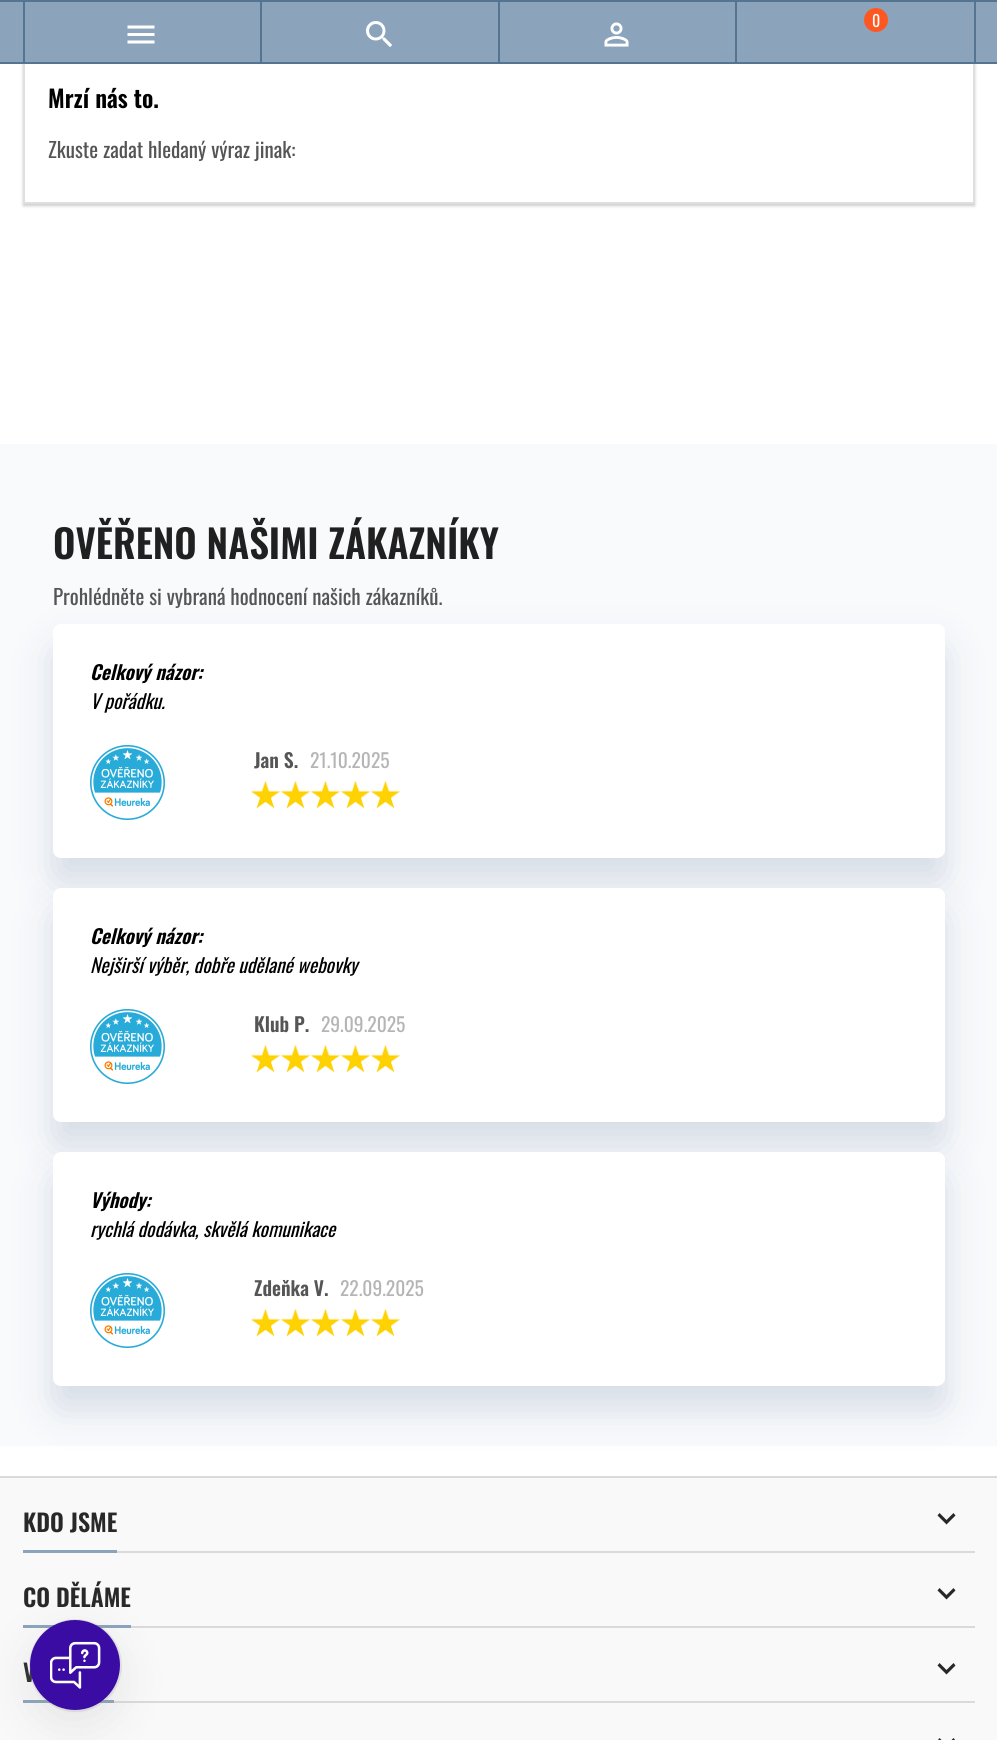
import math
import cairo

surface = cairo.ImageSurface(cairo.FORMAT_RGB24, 997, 1740)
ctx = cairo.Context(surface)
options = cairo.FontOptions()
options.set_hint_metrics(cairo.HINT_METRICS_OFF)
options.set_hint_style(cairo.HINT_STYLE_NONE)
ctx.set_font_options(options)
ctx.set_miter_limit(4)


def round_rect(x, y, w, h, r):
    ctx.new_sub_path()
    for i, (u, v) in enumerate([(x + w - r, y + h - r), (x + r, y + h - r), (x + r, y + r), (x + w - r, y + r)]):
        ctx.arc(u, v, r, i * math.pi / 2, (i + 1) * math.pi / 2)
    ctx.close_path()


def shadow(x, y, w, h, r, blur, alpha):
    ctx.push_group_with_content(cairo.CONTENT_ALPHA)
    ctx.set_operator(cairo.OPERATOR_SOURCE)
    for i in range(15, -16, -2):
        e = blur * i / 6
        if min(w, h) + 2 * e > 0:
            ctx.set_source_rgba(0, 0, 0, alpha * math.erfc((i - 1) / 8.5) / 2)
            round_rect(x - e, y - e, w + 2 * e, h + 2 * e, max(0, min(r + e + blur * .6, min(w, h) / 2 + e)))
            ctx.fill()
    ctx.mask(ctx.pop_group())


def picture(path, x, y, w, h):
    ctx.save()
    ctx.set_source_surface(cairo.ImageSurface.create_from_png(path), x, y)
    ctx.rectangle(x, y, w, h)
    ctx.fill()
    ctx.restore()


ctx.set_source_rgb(1, 1, 1)
ctx.paint()
ctx.save()
ctx.set_fill_rule(cairo.FILL_RULE_EVEN_ODD)
ctx.new_path()
ctx.move_to(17, 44)
ctx.line_to(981, 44)
ctx.line_to(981, 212)
ctx.line_to(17, 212)
ctx.close_path()
ctx.move_to(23, 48)
ctx.line_to(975, 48)
ctx.line_to(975, 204)
ctx.line_to(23, 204)
ctx.close_path()
ctx.clip()
ctx.set_source_rgb(0, 0, 0)
shadow(23, 50, 952, 156, 0, 1.5, 0.2)
ctx.restore()
ctx.rectangle(24, 49, 950, 154)
ctx.set_source_rgb(0.875, 0.875, 0.875)
ctx.stroke()
ctx.set_source_rgb(0.545, 0.643, 0.733)
ctx.rectangle(0, 2, 997, 60)
ctx.fill()
ctx.set_source_rgb(0.333, 0.455, 0.569)
ctx.rectangle(0, 0, 997, 2)
ctx.fill()
ctx.rectangle(0, 62, 997, 2)
ctx.fill()
ctx.rectangle(260, 2, 2, 60)
ctx.fill()
ctx.rectangle(23, 2, 2, 60)
ctx.fill()
picture("img1.png", 127, 25, 28, 19)
ctx.rectangle(498, 2, 2, 60)
ctx.fill()
picture("img2.png", 366, 21, 27, 26)
ctx.rectangle(735, 2, 2, 60)
ctx.fill()
picture("img3.png", 604, 22, 25, 25)
ctx.rectangle(974, 2, 2, 60)
ctx.fill()
ctx.set_source_rgb(1, 0.341, 0.133)
ctx.arc(876, 20, 12, 0, 2 * math.pi)
ctx.fill()
ctx.select_font_face("Oswald")
ctx.set_font_size(16)
ctx.set_source_rgb(1, 1, 1)
ctx.move_to(872, 27)
ctx.show_text("0")
ctx.select_font_face("Oswald SemiBold")
ctx.set_font_size(24)
ctx.set_source_rgb(0, 0, 0)
ctx.move_to(48, 108)
ctx.show_text("Mrzí nás to.")
ctx.select_font_face("Oswald")
ctx.set_font_size(21)
ctx.set_source_rgb(0.333, 0.333, 0.333)
ctx.move_to(48, 158)
ctx.show_text("Zkuste zadat hledaný výraz jinak:")
ctx.set_source_rgb(0.973, 0.98, 0.988)
ctx.rectangle(0, 444, 997, 1002)
ctx.fill()
ctx.select_font_face("Oswald SemiBold")
ctx.set_font_size(39)
ctx.set_source_rgb(0.125, 0.125, 0.125)
ctx.move_to(53, 559)
ctx.show_text("OVĚŘENO NAŠIMI ZÁKAZNÍKY")
ctx.select_font_face("Oswald")
ctx.set_font_size(21)
ctx.set_source_rgb(0.333, 0.333, 0.333)
ctx.move_to(53, 605)
ctx.show_text("Prohlédněte si vybraná hodnocení našich zákazníků.")
ctx.set_source_rgb(0.776, 0.812, 0.863)
shadow(53, 647, 892, 234, 8, 19, 0.7)
ctx.set_source_rgb(1, 1, 1)
round_rect(53, 624, 892, 234, 8)
ctx.fill()
ctx.select_font_face("Oswald SemiBold", cairo.FONT_SLANT_ITALIC)
ctx.set_font_size(19.5)
ctx.set_source_rgb(0, 0, 0)
ctx.move_to(90, 680)
ctx.show_text("Celkový názor:")
ctx.select_font_face("Oswald", cairo.FONT_SLANT_ITALIC)
ctx.move_to(90, 709)
ctx.show_text("V pořádku.")
picture("img4.png", 90, 745, 75, 75)
ctx.select_font_face("Oswald SemiBold")
ctx.set_source_rgb(0.333, 0.333, 0.333)
ctx.move_to(254, 768)
ctx.show_text("Jan S.")
ctx.select_font_face("Oswald")
ctx.set_source_rgb(0.71, 0.71, 0.71)
ctx.move_to(310, 768)
ctx.show_text("21.10.2025")
picture("img5.png", 250, 780, 31, 29)
picture("img6.png", 280, 780, 31, 29)
picture("img6.png", 310, 780, 31, 29)
picture("img6.png", 340, 780, 31, 29)
picture("img7.png", 370, 780, 31, 29)
ctx.set_source_rgb(0.776, 0.812, 0.863)
shadow(53, 911, 892, 234, 8, 19, 0.7)
ctx.set_source_rgb(1, 1, 1)
round_rect(53, 888, 892, 234, 8)
ctx.fill()
ctx.select_font_face("Oswald SemiBold", cairo.FONT_SLANT_ITALIC)
ctx.set_source_rgb(0, 0, 0)
ctx.move_to(90, 944)
ctx.show_text("Celkový názor:")
ctx.select_font_face("Oswald", cairo.FONT_SLANT_ITALIC)
ctx.move_to(90, 973)
ctx.show_text("Nejširší výběr, dobře udělané webovky")
picture("img4.png", 90, 1009, 75, 75)
ctx.select_font_face("Oswald SemiBold")
ctx.set_source_rgb(0.333, 0.333, 0.333)
ctx.move_to(254, 1032)
ctx.show_text("Klub P.")
ctx.select_font_face("Oswald")
ctx.set_source_rgb(0.71, 0.71, 0.71)
ctx.move_to(321, 1032)
ctx.show_text("29.09.2025")
picture("img5.png", 250, 1044, 31, 29)
picture("img6.png", 280, 1044, 31, 29)
picture("img6.png", 310, 1044, 31, 29)
picture("img6.png", 340, 1044, 31, 29)
picture("img7.png", 370, 1044, 31, 29)
ctx.set_source_rgb(0.776, 0.812, 0.863)
shadow(53, 1175, 892, 234, 8, 19, 0.7)
ctx.set_source_rgb(1, 1, 1)
round_rect(53, 1152, 892, 234, 8)
ctx.fill()
ctx.select_font_face("Oswald SemiBold", cairo.FONT_SLANT_ITALIC)
ctx.set_source_rgb(0, 0, 0)
ctx.move_to(90, 1208)
ctx.show_text("Výhody:")
ctx.select_font_face("Oswald", cairo.FONT_SLANT_ITALIC)
ctx.move_to(90, 1237)
ctx.show_text("rychlá dodávka, skvělá komunikace")
picture("img4.png", 90, 1273, 75, 75)
ctx.select_font_face("Oswald SemiBold")
ctx.set_source_rgb(0.333, 0.333, 0.333)
ctx.move_to(254, 1296)
ctx.show_text("Zdeňka V.")
ctx.select_font_face("Oswald")
ctx.set_source_rgb(0.71, 0.71, 0.71)
ctx.move_to(340, 1296)
ctx.show_text("22.09.2025")
picture("img5.png", 250, 1308, 31, 29)
picture("img6.png", 280, 1308, 31, 29)
picture("img6.png", 310, 1308, 31, 29)
picture("img6.png", 340, 1308, 31, 29)
picture("img7.png", 370, 1308, 31, 29)
ctx.set_source_rgb(0.976, 0.976, 0.976)
ctx.rectangle(0, 1478, 997, 262)
ctx.fill()
ctx.set_source_rgb(0.855, 0.855, 0.855)
ctx.rectangle(0, 1476, 997, 2)
ctx.fill()
ctx.rectangle(117, 1551, 858, 2)
ctx.fill()
ctx.set_source_rgb(0.545, 0.643, 0.733)
ctx.rectangle(23, 1550, 94, 3)
ctx.fill()
ctx.select_font_face("Oswald SemiBold")
ctx.set_font_size(24)
ctx.set_source_rgb(0.157, 0.157, 0.157)
ctx.move_to(23, 1532)
ctx.show_text("KDO JSME")
ctx.new_path()
ctx.move_to(939.5, 1513)
ctx.line_to(946.5, 1520)
ctx.line_to(953.5, 1513)
ctx.line_to(955.5, 1515.5)
ctx.line_to(946.5, 1524.5)
ctx.line_to(937.5, 1515.5)
ctx.close_path()
ctx.fill()
ctx.set_source_rgb(0.855, 0.855, 0.855)
ctx.rectangle(131, 1626, 844, 2)
ctx.fill()
ctx.set_source_rgb(0.545, 0.643, 0.733)
ctx.rectangle(23, 1625, 108, 3)
ctx.fill()
ctx.set_source_rgb(0.157, 0.157, 0.157)
ctx.move_to(23, 1607)
ctx.show_text("CO DĚLÁME")
ctx.new_path()
ctx.move_to(939.5, 1588)
ctx.line_to(946.5, 1595)
ctx.line_to(953.5, 1588)
ctx.line_to(955.5, 1590.5)
ctx.line_to(946.5, 1599.5)
ctx.line_to(937.5, 1590.5)
ctx.close_path()
ctx.fill()
ctx.set_source_rgb(0.855, 0.855, 0.855)
ctx.rectangle(114, 1701, 861, 2)
ctx.fill()
ctx.set_source_rgb(0.545, 0.643, 0.733)
ctx.rectangle(23, 1700, 91, 3)
ctx.fill()
ctx.set_source_rgb(0.157, 0.157, 0.157)
ctx.move_to(23, 1682)
ctx.show_text("V")
ctx.new_path()
ctx.move_to(939.5, 1663)
ctx.line_to(946.5, 1670)
ctx.line_to(953.5, 1663)
ctx.line_to(955.5, 1665.5)
ctx.line_to(946.5, 1674.5)
ctx.line_to(937.5, 1665.5)
ctx.close_path()
ctx.fill()
ctx.new_path()
ctx.move_to(939.5, 1738)
ctx.line_to(946.5, 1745)
ctx.line_to(953.5, 1738)
ctx.line_to(955.5, 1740.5)
ctx.line_to(946.5, 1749.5)
ctx.line_to(937.5, 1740.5)
ctx.close_path()
ctx.fill()
ctx.arc(75.5, 1665.5, 45.5, 0, 2 * math.pi)
ctx.set_source_rgba(0.588, 0.588, 0.588, 0.2)
ctx.stroke()
ctx.set_source_rgb(0.588, 0.588, 0.588)
shadow(30, 1635, 90, 90, 45, 22.5, 0.2)
ctx.set_source_rgb(0.227, 0.047, 0.639)
ctx.arc(75, 1665, 45, 0, 2 * math.pi)
ctx.fill()
picture("img8.png", 50, 1641, 51, 48)
surface.write_to_png("page.png")
